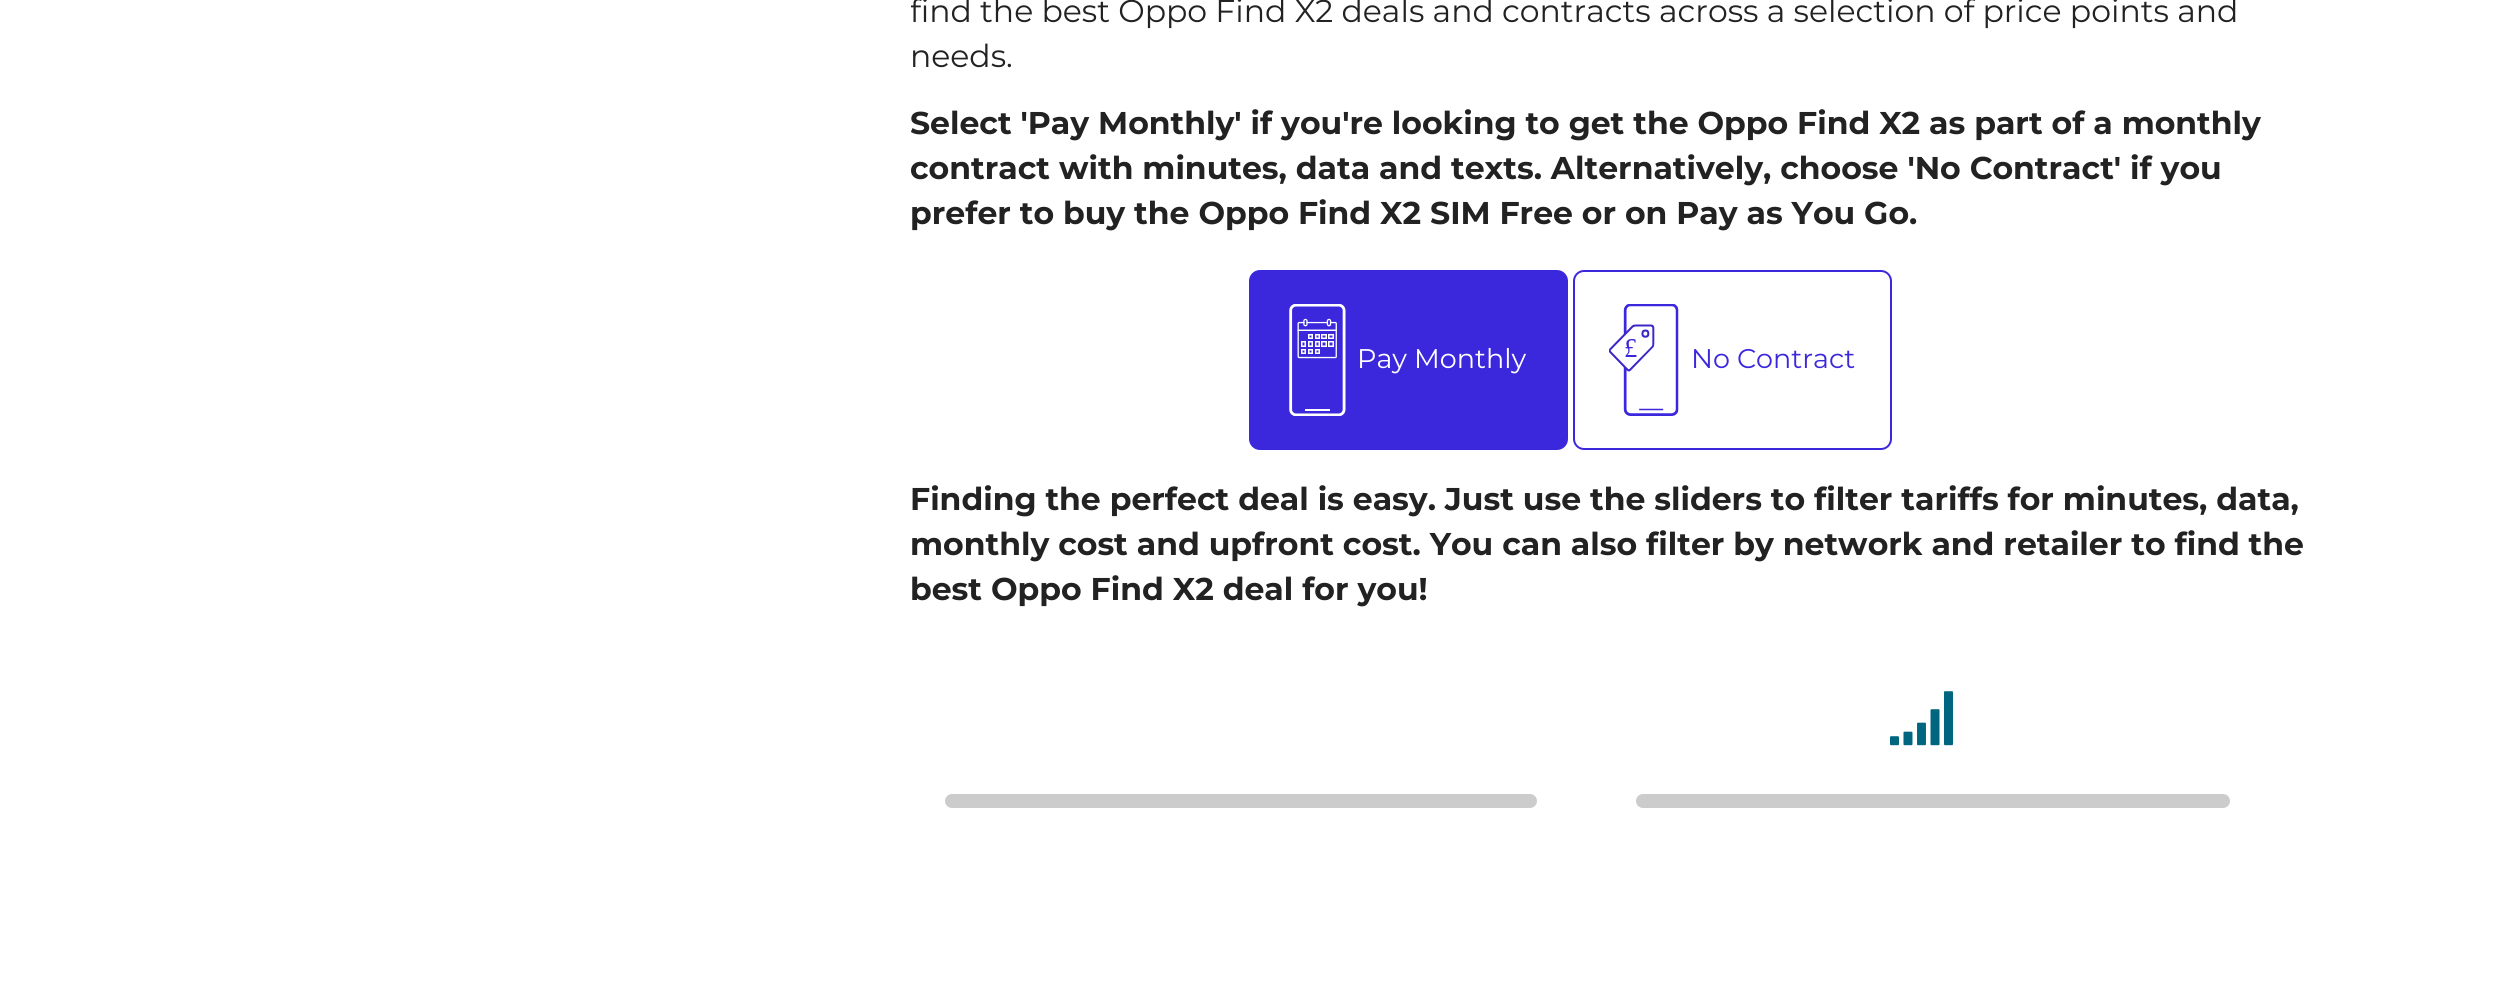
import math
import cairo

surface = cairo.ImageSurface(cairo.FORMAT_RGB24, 2494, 1005)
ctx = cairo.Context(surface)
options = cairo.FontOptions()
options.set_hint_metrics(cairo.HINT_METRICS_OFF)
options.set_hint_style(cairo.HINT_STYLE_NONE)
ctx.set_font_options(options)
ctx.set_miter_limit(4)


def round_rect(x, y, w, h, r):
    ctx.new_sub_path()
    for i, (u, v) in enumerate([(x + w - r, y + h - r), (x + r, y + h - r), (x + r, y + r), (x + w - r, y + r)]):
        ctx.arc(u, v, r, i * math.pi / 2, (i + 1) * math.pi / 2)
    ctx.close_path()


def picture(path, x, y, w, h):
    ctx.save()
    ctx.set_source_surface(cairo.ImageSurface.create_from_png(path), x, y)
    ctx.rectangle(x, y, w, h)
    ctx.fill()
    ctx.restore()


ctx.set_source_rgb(1, 1, 1)
ctx.paint()
ctx.save()
ctx.rectangle(911, 0, 1395, 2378)
ctx.clip()
ctx.select_font_face("Montserrat")
ctx.set_font_size(31.5)
ctx.set_source_rgb(0.133, 0.133, 0.133)
ctx.move_to(910, 22)
ctx.show_text("find the best Oppo Find X2 deals and contracts across a selection of price points and")
ctx.restore()
ctx.select_font_face("Montserrat")
ctx.set_font_size(31.5)
ctx.set_source_rgb(0.133, 0.133, 0.133)
ctx.move_to(910, 67)
ctx.show_text("needs.")
ctx.select_font_face("Montserrat", cairo.FONT_SLANT_NORMAL, cairo.FONT_WEIGHT_BOLD)
ctx.move_to(910, 134)
ctx.show_text("Select 'Pay Monthly' if you're looking to get the Oppo Find X2 as part of a monthly")
ctx.move_to(910, 179)
ctx.show_text("contract with minutes, data and texts. Alternatively, choose 'No Contract' if you")
ctx.move_to(910, 224)
ctx.show_text("prefer to buy the Oppo Find X2 SIM Free or on Pay as You Go.")
ctx.set_source_rgb(0.235, 0.157, 0.863)
round_rect(1250, 271, 317, 178, 10)
ctx.fill_preserve()
ctx.stroke()
picture("img1.png", 1289, 304, 57, 112)
ctx.select_font_face("Montserrat")
ctx.set_font_size(27)
ctx.set_source_rgb(1, 1, 1)
ctx.move_to(1357, 368)
ctx.show_text("Pay Monthly")
round_rect(1574, 271, 317, 178, 10)
ctx.set_source_rgb(0.235, 0.157, 0.863)
ctx.stroke()
picture("img2.png", 1609, 304, 70, 112)
ctx.move_to(1691, 368)
ctx.show_text("No Contract")
ctx.select_font_face("Montserrat", cairo.FONT_SLANT_NORMAL, cairo.FONT_WEIGHT_BOLD)
ctx.set_font_size(31.5)
ctx.set_source_rgb(0.133, 0.133, 0.133)
ctx.move_to(910, 510)
ctx.show_text("Finding the perfect deal is easy. Just use the sliders to filter tariffs for minutes, data,")
ctx.move_to(910, 555)
ctx.show_text("monthly cost and upfront cost. You can also filter by network and retailer to find the")
ctx.move_to(910, 600)
ctx.show_text("best Oppo Find X2 deal for you!")
ctx.set_source_rgb(0.8, 0.8, 0.8)
round_rect(945, 794, 592, 14, 7)
ctx.fill()
picture("img3.png", 1890, 691, 63, 55)
round_rect(1636, 794, 594, 14, 7)
ctx.fill()
surface.write_to_png("page.png")
